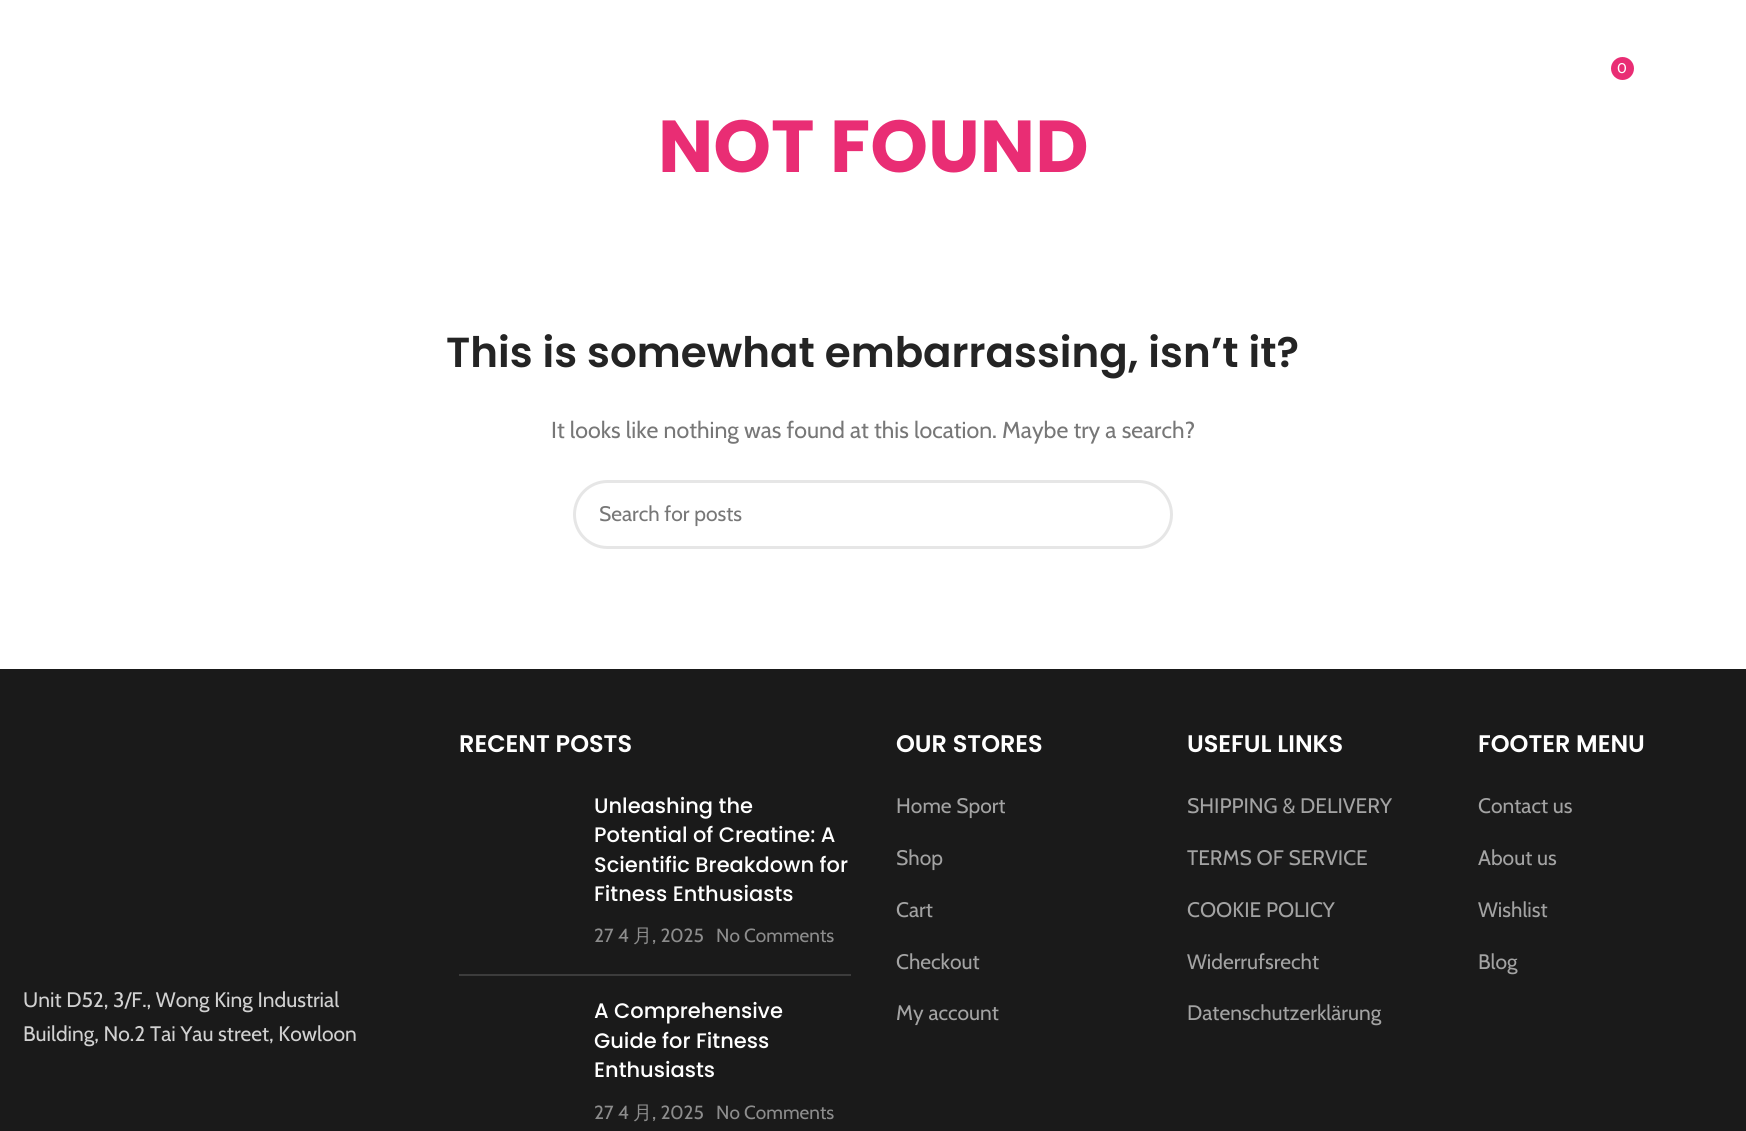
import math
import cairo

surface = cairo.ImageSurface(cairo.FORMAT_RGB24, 1746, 1131)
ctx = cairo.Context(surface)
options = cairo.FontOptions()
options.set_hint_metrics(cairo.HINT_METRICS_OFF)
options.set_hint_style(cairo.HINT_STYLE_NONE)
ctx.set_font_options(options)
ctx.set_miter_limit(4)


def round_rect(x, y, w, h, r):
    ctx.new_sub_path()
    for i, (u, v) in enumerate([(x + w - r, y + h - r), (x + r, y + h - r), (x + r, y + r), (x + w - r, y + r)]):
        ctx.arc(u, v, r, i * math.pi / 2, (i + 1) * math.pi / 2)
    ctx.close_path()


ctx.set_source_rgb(1, 1, 1)
ctx.paint()
ctx.set_source_rgb(0.914, 0.176, 0.455)
ctx.arc(1622.5, 68.5, 11.5, 0, 2 * math.pi)
ctx.fill()
ctx.select_font_face("Cabin")
ctx.set_font_size(14)
ctx.set_source_rgb(1, 1, 1)
ctx.move_to(1617, 73)
ctx.show_text("0")
ctx.select_font_face("Poppins", cairo.FONT_SLANT_NORMAL, cairo.FONT_WEIGHT_BOLD)
ctx.set_font_size(73.5)
ctx.set_source_rgb(0.914, 0.176, 0.455)
ctx.move_to(658, 172)
ctx.show_text("NOT FOUND")
ctx.select_font_face("Poppins SemiBold")
ctx.set_font_size(42)
ctx.set_source_rgb(0.141, 0.141, 0.141)
ctx.move_to(446, 367)
ctx.show_text("This is somewhat embarrassing, isn’t it?")
ctx.select_font_face("Cabin")
ctx.set_font_size(23.1)
ctx.set_source_rgb(0.467, 0.467, 0.467)
ctx.move_to(551, 438)
ctx.show_text("It looks like nothing was found at this location. Maybe try a search?")
round_rect(574.5, 481.5, 597, 66, 33)
ctx.set_source_rgb(0.902, 0.902, 0.902)
ctx.set_line_width(3)
ctx.stroke()
ctx.set_font_size(21)
ctx.set_source_rgb(0.467, 0.467, 0.467)
ctx.move_to(599, 521)
ctx.show_text("Search for posts")
ctx.set_source_rgb(0.102, 0.102, 0.102)
ctx.rectangle(0, 669, 1746, 462)
ctx.fill()
ctx.select_font_face("Poppins SemiBold")
ctx.set_font_size(24)
ctx.set_source_rgb(1, 1, 1)
ctx.move_to(459, 752)
ctx.show_text("RECENT POSTS")
ctx.set_source_rgb(0.235, 0.235, 0.235)
ctx.rectangle(459, 974, 392, 2)
ctx.fill()
ctx.select_font_face("Poppins Medium")
ctx.set_font_size(21)
ctx.set_source_rgb(1, 1, 1)
ctx.move_to(594, 813)
ctx.show_text("Unleashing the")
ctx.move_to(594, 842)
ctx.show_text("Potential of Creatine: A")
ctx.move_to(594, 872)
ctx.show_text("Scientific Breakdown for")
ctx.move_to(594, 901)
ctx.show_text("Fitness Enthusiasts")
ctx.select_font_face("Cabin")
ctx.set_font_size(19)
ctx.set_source_rgb(0.553, 0.553, 0.553)
ctx.move_to(594, 942)
ctx.show_text("27 4")
ctx.select_font_face("WenQuanYi Zen Hei Medium")
ctx.move_to(633, 942)
ctx.show_text("月")
ctx.select_font_face("Cabin")
ctx.move_to(652, 942)
ctx.show_text(", 2025")
ctx.move_to(716, 942)
ctx.show_text("No Comments")
ctx.select_font_face("Poppins Medium")
ctx.set_font_size(21)
ctx.set_source_rgb(1, 1, 1)
ctx.move_to(594, 1018)
ctx.show_text("A Comprehensive")
ctx.move_to(594, 1048)
ctx.show_text("Guide for Fitness")
ctx.move_to(594, 1077)
ctx.show_text("Enthusiasts")
ctx.select_font_face("Cabin")
ctx.set_font_size(19)
ctx.set_source_rgb(0.553, 0.553, 0.553)
ctx.move_to(594, 1119)
ctx.show_text("27 4")
ctx.select_font_face("WenQuanYi Zen Hei Medium")
ctx.move_to(633, 1119)
ctx.show_text("月")
ctx.select_font_face("Cabin")
ctx.move_to(652, 1119)
ctx.show_text(", 2025")
ctx.move_to(716, 1119)
ctx.show_text("No Comments")
ctx.select_font_face("Poppins SemiBold")
ctx.set_font_size(24)
ctx.set_source_rgb(1, 1, 1)
ctx.move_to(896, 752)
ctx.show_text("OUR STORES")
ctx.select_font_face("Cabin")
ctx.set_font_size(21)
ctx.set_source_rgb(0.639, 0.639, 0.639)
ctx.move_to(896, 813)
ctx.show_text("Home Sport")
ctx.move_to(896, 865)
ctx.show_text("Shop")
ctx.move_to(896, 917)
ctx.show_text("Cart")
ctx.move_to(896, 969)
ctx.show_text("Checkout")
ctx.move_to(896, 1020)
ctx.show_text("My account")
ctx.select_font_face("Poppins SemiBold")
ctx.set_font_size(24)
ctx.set_source_rgb(1, 1, 1)
ctx.move_to(1187, 752)
ctx.show_text("USEFUL LINKS")
ctx.select_font_face("Cabin")
ctx.set_font_size(21)
ctx.set_source_rgb(0.639, 0.639, 0.639)
ctx.move_to(1187, 813)
ctx.show_text("SHIPPING & DELIVERY")
ctx.move_to(1187, 865)
ctx.show_text("TERMS OF SERVICE")
ctx.move_to(1187, 917)
ctx.show_text("COOKIE POLICY")
ctx.move_to(1187, 969)
ctx.show_text("Widerrufsrecht")
ctx.move_to(1187, 1020)
ctx.show_text("Datenschutzerklärung")
ctx.select_font_face("Poppins SemiBold")
ctx.set_font_size(24)
ctx.set_source_rgb(1, 1, 1)
ctx.move_to(1478, 752)
ctx.show_text("FOOTER MENU")
ctx.select_font_face("Cabin")
ctx.set_font_size(21)
ctx.set_source_rgb(0.639, 0.639, 0.639)
ctx.move_to(1478, 813)
ctx.show_text("Contact us")
ctx.move_to(1478, 865)
ctx.show_text("About us")
ctx.move_to(1478, 917)
ctx.show_text("Wishlist")
ctx.move_to(1478, 969)
ctx.show_text("Blog")
ctx.set_source_rgb(0.82, 0.82, 0.82)
ctx.move_to(23, 1007)
ctx.show_text("Unit D52, 3/F., Wong King Industrial")
ctx.move_to(23, 1041)
ctx.show_text("Building, No.2 Tai Yau street, Kowloon")
surface.write_to_png("page.png")
